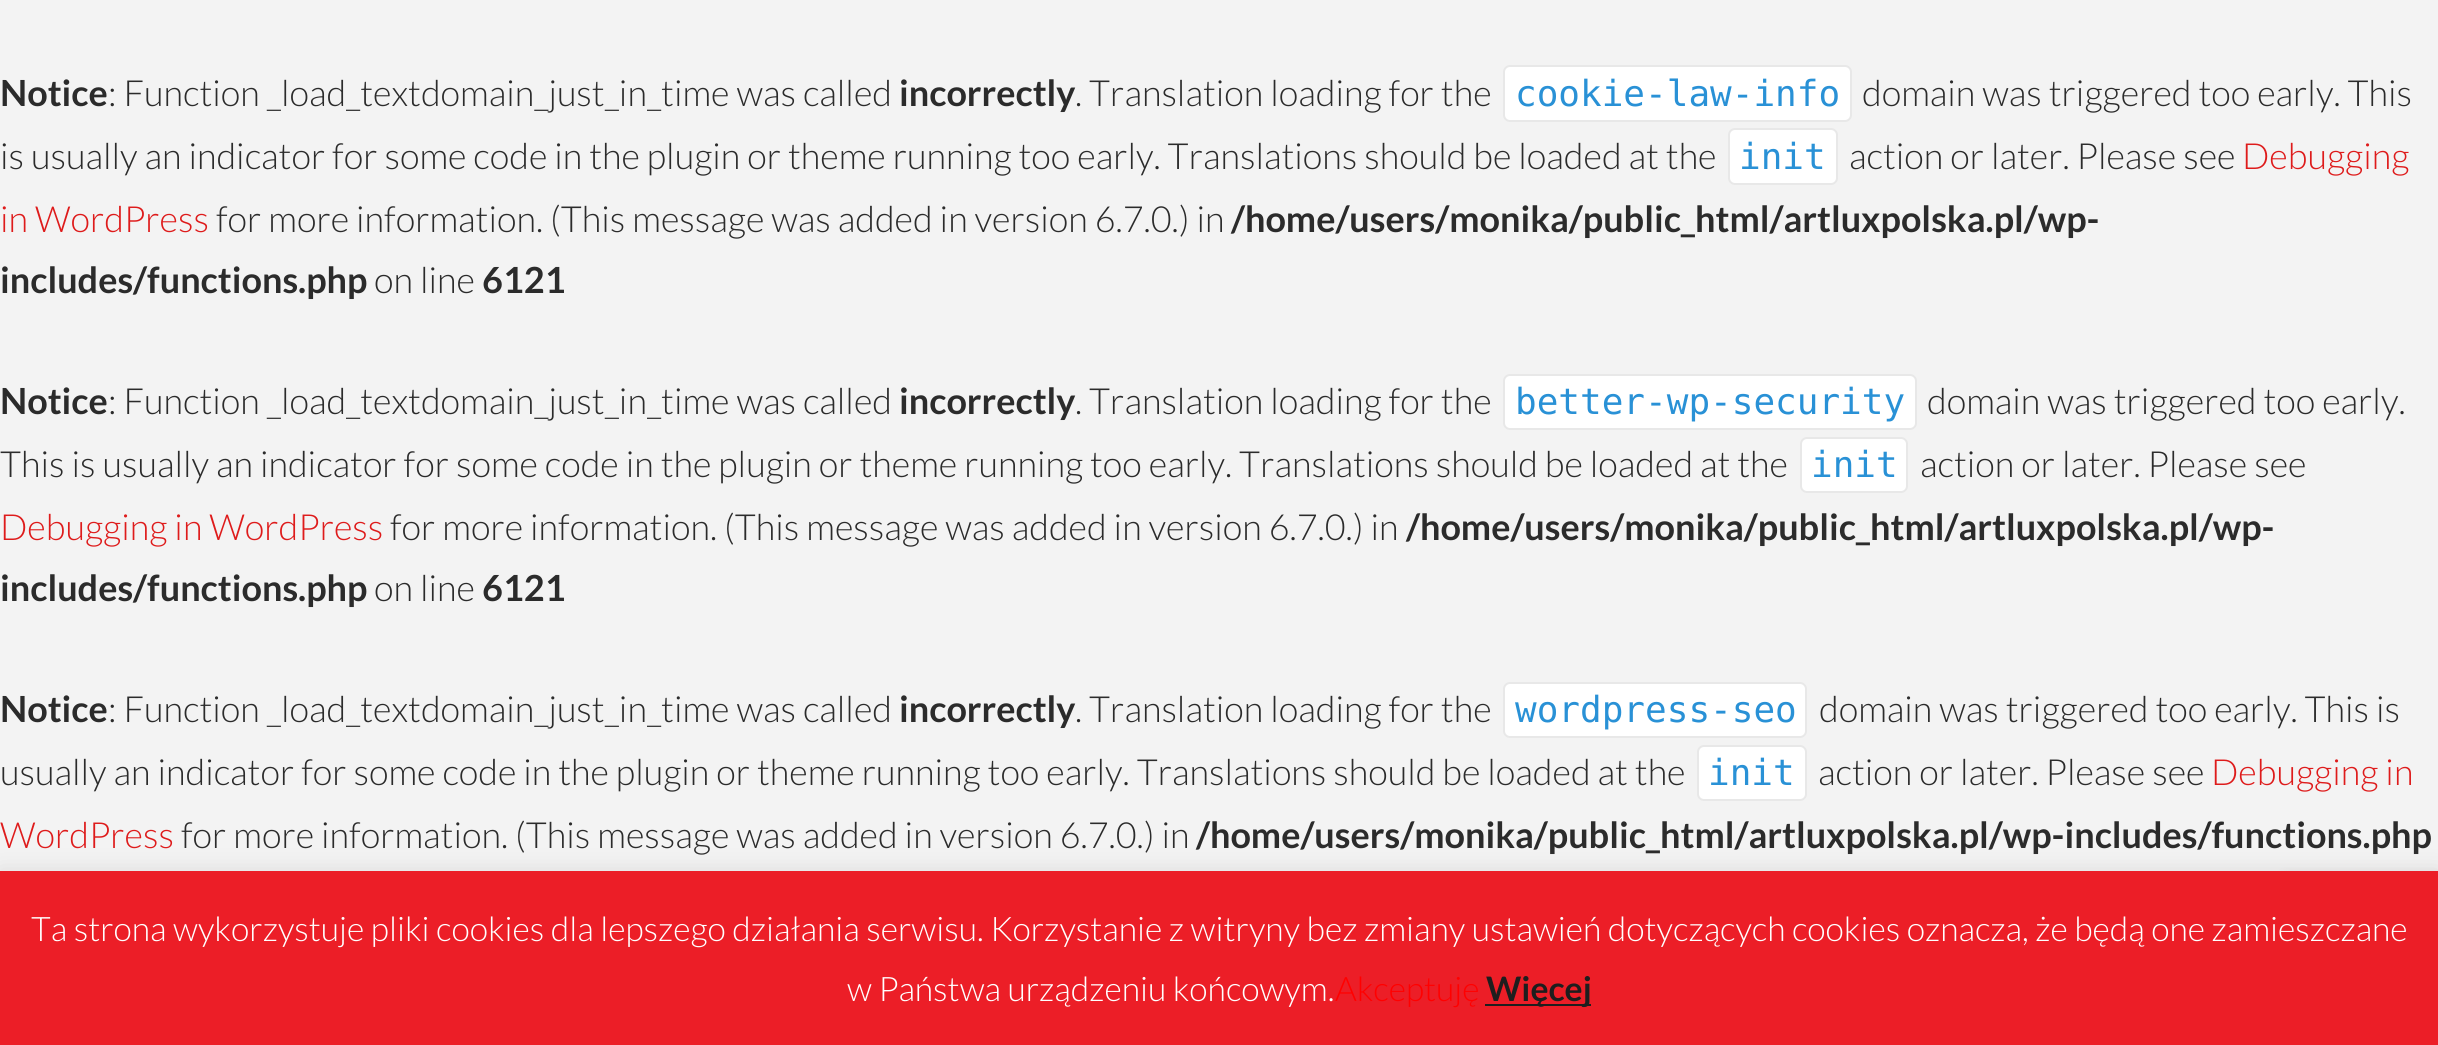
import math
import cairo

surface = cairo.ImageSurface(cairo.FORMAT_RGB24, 2438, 1045)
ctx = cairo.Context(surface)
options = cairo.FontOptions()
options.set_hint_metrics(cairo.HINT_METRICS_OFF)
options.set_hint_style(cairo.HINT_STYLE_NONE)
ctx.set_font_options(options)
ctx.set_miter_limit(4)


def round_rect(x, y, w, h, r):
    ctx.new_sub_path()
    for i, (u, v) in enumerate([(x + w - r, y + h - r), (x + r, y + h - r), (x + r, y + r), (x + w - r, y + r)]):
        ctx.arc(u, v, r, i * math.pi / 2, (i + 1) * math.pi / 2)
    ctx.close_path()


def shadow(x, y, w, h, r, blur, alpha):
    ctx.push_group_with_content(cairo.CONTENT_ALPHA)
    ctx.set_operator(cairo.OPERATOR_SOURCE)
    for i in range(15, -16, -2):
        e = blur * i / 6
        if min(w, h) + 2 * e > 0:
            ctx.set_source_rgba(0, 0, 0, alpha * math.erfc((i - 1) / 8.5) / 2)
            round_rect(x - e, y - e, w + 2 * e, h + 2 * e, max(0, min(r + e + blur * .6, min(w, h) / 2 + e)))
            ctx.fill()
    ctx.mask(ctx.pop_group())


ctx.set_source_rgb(0.953, 0.953, 0.953)
ctx.paint()
ctx.select_font_face("Lato", cairo.FONT_SLANT_NORMAL, cairo.FONT_WEIGHT_BOLD)
ctx.set_font_size(36)
ctx.set_source_rgb(0.169, 0.169, 0.169)
ctx.move_to(0, 106)
ctx.show_text("Notice")
ctx.select_font_face("Lato Light")
ctx.move_to(108, 106)
ctx.show_text(": Function _load_textdomain_just_in_time was called")
ctx.select_font_face("Lato", cairo.FONT_SLANT_NORMAL, cairo.FONT_WEIGHT_BOLD)
ctx.move_to(899, 106)
ctx.show_text("incorrectly")
ctx.select_font_face("Lato Light")
ctx.move_to(1075, 106)
ctx.show_text(". Translation loading for the")
ctx.set_source_rgb(1, 1, 1)
round_rect(1504, 66, 347, 55, 6)
ctx.fill_preserve()
ctx.set_source_rgb(0.91, 0.91, 0.91)
ctx.stroke()
ctx.select_font_face("DejaVu Sans Mono")
ctx.set_source_rgb(0.161, 0.569, 0.839)
ctx.move_to(1515, 106)
ctx.show_text("cookie-law-info")
ctx.select_font_face("Lato Light")
ctx.set_source_rgb(0.169, 0.169, 0.169)
ctx.move_to(1862, 106)
ctx.show_text("domain was triggered too early. This")
ctx.move_to(0, 169)
ctx.show_text("is usually an indicator for some code in the plugin or theme running too early. Translations should be loaded at the")
ctx.set_source_rgb(1, 1, 1)
round_rect(1729, 129, 108, 55, 6)
ctx.fill_preserve()
ctx.set_source_rgb(0.91, 0.91, 0.91)
ctx.stroke()
ctx.select_font_face("DejaVu Sans Mono")
ctx.set_source_rgb(0.161, 0.569, 0.839)
ctx.move_to(1739, 169)
ctx.show_text("init")
ctx.select_font_face("Lato Light")
ctx.set_source_rgb(0.169, 0.169, 0.169)
ctx.move_to(1849, 169)
ctx.show_text("action or later. Please see")
ctx.set_source_rgb(0.871, 0.106, 0.106)
ctx.move_to(2242, 169)
ctx.show_text("Debugging")
ctx.move_to(0, 232)
ctx.show_text("in WordPress")
ctx.set_source_rgb(0.169, 0.169, 0.169)
ctx.move_to(216, 232)
ctx.show_text("for more information. (This message was added in version 6.7.0.) in")
ctx.select_font_face("Lato", cairo.FONT_SLANT_NORMAL, cairo.FONT_WEIGHT_BOLD)
ctx.move_to(1231, 232)
ctx.show_text("/home/users/monika/public_html/artluxpolska.pl/wp-")
ctx.move_to(0, 293)
ctx.show_text("includes/functions.php")
ctx.select_font_face("Lato Light")
ctx.move_to(374, 293)
ctx.show_text("on line")
ctx.select_font_face("Lato", cairo.FONT_SLANT_NORMAL, cairo.FONT_WEIGHT_BOLD)
ctx.move_to(482, 293)
ctx.show_text("6121")
ctx.move_to(0, 414)
ctx.show_text("Notice")
ctx.select_font_face("Lato Light")
ctx.move_to(108, 414)
ctx.show_text(": Function _load_textdomain_just_in_time was called")
ctx.select_font_face("Lato", cairo.FONT_SLANT_NORMAL, cairo.FONT_WEIGHT_BOLD)
ctx.move_to(899, 414)
ctx.show_text("incorrectly")
ctx.select_font_face("Lato Light")
ctx.move_to(1075, 414)
ctx.show_text(". Translation loading for the")
ctx.set_source_rgb(1, 1, 1)
round_rect(1504, 375, 412, 54, 6)
ctx.fill_preserve()
ctx.set_source_rgb(0.91, 0.91, 0.91)
ctx.stroke()
ctx.select_font_face("DejaVu Sans Mono")
ctx.set_source_rgb(0.161, 0.569, 0.839)
ctx.move_to(1515, 414)
ctx.show_text("better-wp-security")
ctx.select_font_face("Lato Light")
ctx.set_source_rgb(0.169, 0.169, 0.169)
ctx.move_to(1927, 414)
ctx.show_text("domain was triggered too early.")
ctx.move_to(0, 477)
ctx.show_text("This is usually an indicator for some code in the plugin or theme running too early. Translations should be loaded at the")
ctx.set_source_rgb(1, 1, 1)
round_rect(1801, 438, 106, 54, 6)
ctx.fill_preserve()
ctx.set_source_rgb(0.91, 0.91, 0.91)
ctx.stroke()
ctx.select_font_face("DejaVu Sans Mono")
ctx.set_source_rgb(0.161, 0.569, 0.839)
ctx.move_to(1811, 477)
ctx.show_text("init")
ctx.select_font_face("Lato Light")
ctx.set_source_rgb(0.169, 0.169, 0.169)
ctx.move_to(1920, 477)
ctx.show_text("action or later. Please see")
ctx.set_source_rgb(0.871, 0.106, 0.106)
ctx.move_to(0, 540)
ctx.show_text("Debugging in WordPress")
ctx.set_source_rgb(0.169, 0.169, 0.169)
ctx.move_to(390, 540)
ctx.show_text("for more information. (This message was added in version 6.7.0.) in")
ctx.select_font_face("Lato", cairo.FONT_SLANT_NORMAL, cairo.FONT_WEIGHT_BOLD)
ctx.move_to(1406, 540)
ctx.show_text("/home/users/monika/public_html/artluxpolska.pl/wp-")
ctx.move_to(0, 601)
ctx.show_text("includes/functions.php")
ctx.select_font_face("Lato Light")
ctx.move_to(374, 601)
ctx.show_text("on line")
ctx.select_font_face("Lato", cairo.FONT_SLANT_NORMAL, cairo.FONT_WEIGHT_BOLD)
ctx.move_to(482, 601)
ctx.show_text("6121")
ctx.move_to(0, 722)
ctx.show_text("Notice")
ctx.select_font_face("Lato Light")
ctx.move_to(108, 722)
ctx.show_text(": Function _load_textdomain_just_in_time was called")
ctx.select_font_face("Lato", cairo.FONT_SLANT_NORMAL, cairo.FONT_WEIGHT_BOLD)
ctx.move_to(899, 722)
ctx.show_text("incorrectly")
ctx.select_font_face("Lato Light")
ctx.move_to(1075, 722)
ctx.show_text(". Translation loading for the")
ctx.set_source_rgb(1, 1, 1)
round_rect(1504, 683, 302, 54, 6)
ctx.fill_preserve()
ctx.set_source_rgb(0.91, 0.91, 0.91)
ctx.stroke()
ctx.select_font_face("DejaVu Sans Mono")
ctx.set_source_rgb(0.161, 0.569, 0.839)
ctx.move_to(1515, 722)
ctx.show_text("wordpress-seo")
ctx.select_font_face("Lato Light")
ctx.set_source_rgb(0.169, 0.169, 0.169)
ctx.move_to(1819, 722)
ctx.show_text("domain was triggered too early. This is")
ctx.move_to(0, 785)
ctx.show_text("usually an indicator for some code in the plugin or theme running too early. Translations should be loaded at the")
ctx.set_source_rgb(1, 1, 1)
round_rect(1698, 746, 108, 54, 6)
ctx.fill_preserve()
ctx.set_source_rgb(0.91, 0.91, 0.91)
ctx.stroke()
ctx.select_font_face("DejaVu Sans Mono")
ctx.set_source_rgb(0.161, 0.569, 0.839)
ctx.move_to(1708, 785)
ctx.show_text("init")
ctx.select_font_face("Lato Light")
ctx.set_source_rgb(0.169, 0.169, 0.169)
ctx.move_to(1818, 785)
ctx.show_text("action or later. Please see")
ctx.set_source_rgb(0.871, 0.106, 0.106)
ctx.move_to(2211, 785)
ctx.show_text("Debugging in")
ctx.move_to(0, 848)
ctx.show_text("WordPress")
ctx.set_source_rgb(0.169, 0.169, 0.169)
ctx.move_to(181, 848)
ctx.show_text("for more information. (This message was added in version 6.7.0.) in")
ctx.select_font_face("Lato", cairo.FONT_SLANT_NORMAL, cairo.FONT_WEIGHT_BOLD)
ctx.move_to(1196, 848)
ctx.show_text("/home/users/monika/public_html/artluxpolska.pl/wp-includes/functions.php")
ctx.set_source_rgb(0.502, 0.502, 0.502)
shadow(2282, 880, 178, 135, 5, 5.5, 1)
ctx.set_source_rgb(0.675, 0.671, 0.671)
shadow(0, 869, 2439, 175, 0, 11, 0.3)
ctx.set_source_rgb(0.925, 0.118, 0.153)
ctx.rectangle(0, 871, 2438, 174)
ctx.fill()
ctx.select_font_face("Lato Light")
ctx.set_font_size(33.75)
ctx.set_source_rgb(1, 1, 1)
ctx.move_to(31, 941)
ctx.show_text("Ta strona wykorzystuje pliki cookies dla lepszego działania serwisu. Korzystanie z witryny bez zmiany ustawień dotyczących cookies oznacza, że będą one zamieszczane")
ctx.move_to(847, 1001)
ctx.show_text("w Państwa urządzeniu końcowym.")
ctx.set_source_rgb(1, 0, 0)
ctx.move_to(1335, 1001)
ctx.show_text("Akceptuję")
ctx.set_source_rgb(0.118, 0.118, 0.118)
ctx.rectangle(1485, 1004, 106, 2)
ctx.fill()
ctx.select_font_face("Lato", cairo.FONT_SLANT_NORMAL, cairo.FONT_WEIGHT_BOLD)
ctx.move_to(1486, 1001)
ctx.show_text("Więcej")
surface.write_to_png("page.png")
